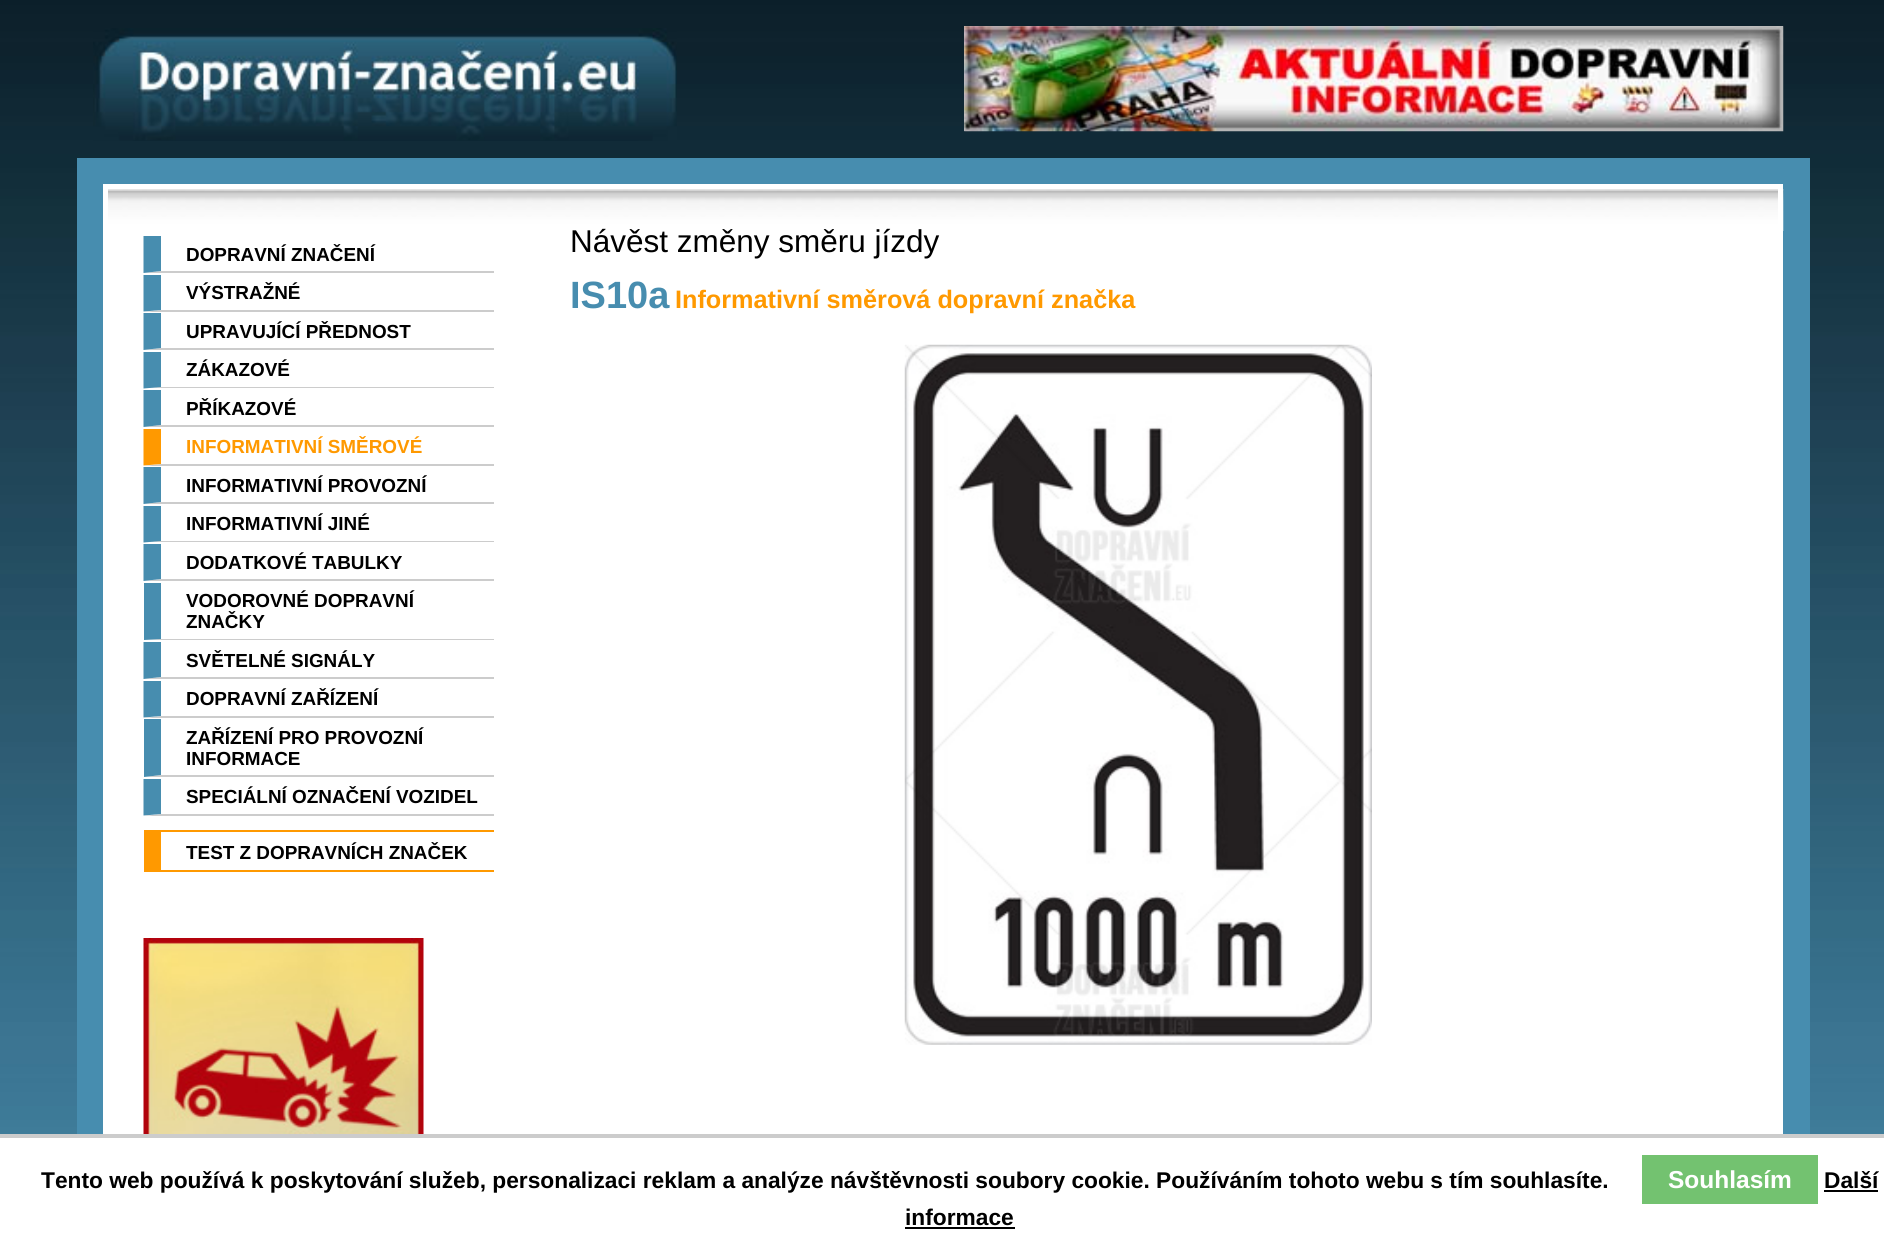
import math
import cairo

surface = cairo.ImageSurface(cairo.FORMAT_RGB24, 1884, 1247)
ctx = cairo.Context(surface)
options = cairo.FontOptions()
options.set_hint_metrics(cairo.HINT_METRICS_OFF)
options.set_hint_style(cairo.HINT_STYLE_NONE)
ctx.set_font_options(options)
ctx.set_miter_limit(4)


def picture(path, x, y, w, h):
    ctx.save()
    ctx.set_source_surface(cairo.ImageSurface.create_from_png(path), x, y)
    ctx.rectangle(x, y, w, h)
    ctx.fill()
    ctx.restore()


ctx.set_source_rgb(1, 1, 1)
ctx.paint()
picture("img1.png", 0, 0, 1884, 1134)
ctx.set_source_rgb(0.278, 0.553, 0.686)
ctx.rectangle(77, 158, 1733, 976)
ctx.fill()
picture("img2.png", 93, 28, 584, 113)
ctx.set_source_rgb(0.8, 0.8, 0.8)
ctx.rectangle(964, 26, 819, 105)
ctx.fill()
picture("img3.png", 964, 26, 820, 106)
ctx.set_source_rgb(1, 1, 1)
ctx.rectangle(108, 231, 1670, 903)
ctx.fill()
picture("img4.png", 108, 189, 1676, 42)
ctx.rectangle(105.5, 186.5, 1675, 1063)
ctx.set_line_width(5)
ctx.stroke()
ctx.set_source_rgb(0.8, 0.8, 0.8)
ctx.new_path()
ctx.move_to(494, 273)
ctx.line_to(144, 273)
ctx.line_to(161, 271)
ctx.line_to(494, 271)
ctx.close_path()
ctx.fill()
ctx.set_source_rgb(0.278, 0.553, 0.686)
ctx.new_path()
ctx.move_to(143.5, 273)
ctx.line_to(143.5, 236)
ctx.line_to(161, 236)
ctx.line_to(161, 271)
ctx.close_path()
ctx.fill()
ctx.select_font_face("Liberation Sans", cairo.FONT_SLANT_NORMAL, cairo.FONT_WEIGHT_BOLD)
ctx.set_font_size(18.9)
ctx.set_source_rgb(0, 0, 0)
ctx.move_to(186, 261)
ctx.show_text("DOPRAVNÍ ZNAČENÍ")
ctx.set_source_rgb(0.8, 0.8, 0.8)
ctx.new_path()
ctx.move_to(494, 312)
ctx.line_to(144, 312)
ctx.line_to(161, 310)
ctx.line_to(494, 310)
ctx.close_path()
ctx.fill()
ctx.set_source_rgb(0.278, 0.553, 0.686)
ctx.new_path()
ctx.move_to(143.5, 311.5)
ctx.line_to(143.5, 275)
ctx.line_to(161, 275)
ctx.line_to(161, 310)
ctx.close_path()
ctx.fill()
ctx.set_source_rgb(0, 0, 0)
ctx.move_to(186, 299)
ctx.show_text("VÝSTRAŽNÉ")
ctx.set_source_rgb(0.8, 0.8, 0.8)
ctx.new_path()
ctx.move_to(494, 350)
ctx.line_to(144, 350)
ctx.line_to(161, 348)
ctx.line_to(494, 348)
ctx.close_path()
ctx.fill()
ctx.set_source_rgb(0.278, 0.553, 0.686)
ctx.new_path()
ctx.move_to(143.5, 350)
ctx.line_to(143.5, 313)
ctx.line_to(161, 313)
ctx.line_to(161, 348)
ctx.close_path()
ctx.fill()
ctx.set_source_rgb(0, 0, 0)
ctx.move_to(186, 338)
ctx.show_text("UPRAVUJÍCÍ PŘEDNOST")
ctx.set_source_rgb(0.8, 0.8, 0.8)
ctx.new_path()
ctx.move_to(494, 388)
ctx.line_to(144, 388)
ctx.line_to(161, 387)
ctx.line_to(494, 387)
ctx.close_path()
ctx.fill()
ctx.set_source_rgb(0.278, 0.553, 0.686)
ctx.new_path()
ctx.move_to(143.5, 388.5)
ctx.line_to(143.5, 352)
ctx.line_to(161, 352)
ctx.line_to(161, 387)
ctx.close_path()
ctx.fill()
ctx.set_source_rgb(0, 0, 0)
ctx.move_to(186, 376)
ctx.show_text("ZÁKAZOVÉ")
ctx.set_source_rgb(0.8, 0.8, 0.8)
ctx.new_path()
ctx.move_to(494, 427)
ctx.line_to(144, 427)
ctx.line_to(161, 425)
ctx.line_to(494, 425)
ctx.close_path()
ctx.fill()
ctx.set_source_rgb(0.278, 0.553, 0.686)
ctx.new_path()
ctx.move_to(143.5, 427)
ctx.line_to(143.5, 390)
ctx.line_to(161, 390)
ctx.line_to(161, 425)
ctx.close_path()
ctx.fill()
ctx.set_source_rgb(0, 0, 0)
ctx.move_to(186, 415)
ctx.show_text("PŘÍKAZOVÉ")
ctx.set_source_rgb(0.8, 0.8, 0.8)
ctx.new_path()
ctx.move_to(494, 466)
ctx.line_to(144, 466)
ctx.line_to(161, 464)
ctx.line_to(494, 464)
ctx.close_path()
ctx.fill()
ctx.set_source_rgb(1, 0.6, 0)
ctx.new_path()
ctx.move_to(143.5, 465.5)
ctx.line_to(143.5, 429)
ctx.line_to(161, 429)
ctx.line_to(161, 464)
ctx.close_path()
ctx.fill()
ctx.move_to(186, 453)
ctx.show_text("INFORMATIVNÍ SMĚROVÉ")
ctx.set_source_rgb(0.8, 0.8, 0.8)
ctx.new_path()
ctx.move_to(494, 504)
ctx.line_to(144, 504)
ctx.line_to(161, 502)
ctx.line_to(494, 502)
ctx.close_path()
ctx.fill()
ctx.set_source_rgb(0.278, 0.553, 0.686)
ctx.new_path()
ctx.move_to(143.5, 504)
ctx.line_to(143.5, 467)
ctx.line_to(161, 467)
ctx.line_to(161, 502)
ctx.close_path()
ctx.fill()
ctx.set_source_rgb(0, 0, 0)
ctx.move_to(186, 492)
ctx.show_text("INFORMATIVNÍ PROVOZNÍ")
ctx.set_source_rgb(0.8, 0.8, 0.8)
ctx.new_path()
ctx.move_to(494, 542)
ctx.line_to(144, 542)
ctx.line_to(161, 541)
ctx.line_to(494, 541)
ctx.close_path()
ctx.fill()
ctx.set_source_rgb(0.278, 0.553, 0.686)
ctx.new_path()
ctx.move_to(143.5, 542.5)
ctx.line_to(143.5, 506)
ctx.line_to(161, 506)
ctx.line_to(161, 541)
ctx.close_path()
ctx.fill()
ctx.set_source_rgb(0, 0, 0)
ctx.move_to(186, 530)
ctx.show_text("INFORMATIVNÍ JINÉ")
ctx.set_source_rgb(0.8, 0.8, 0.8)
ctx.new_path()
ctx.move_to(494, 581)
ctx.line_to(144, 581)
ctx.line_to(161, 579)
ctx.line_to(494, 579)
ctx.close_path()
ctx.fill()
ctx.set_source_rgb(0.278, 0.553, 0.686)
ctx.new_path()
ctx.move_to(143.5, 581)
ctx.line_to(143.5, 544)
ctx.line_to(161, 544)
ctx.line_to(161, 579)
ctx.close_path()
ctx.fill()
ctx.set_source_rgb(0, 0, 0)
ctx.move_to(186, 569)
ctx.show_text("DODATKOVÉ TABULKY")
ctx.set_source_rgb(0.8, 0.8, 0.8)
ctx.new_path()
ctx.move_to(494, 640)
ctx.line_to(144, 640)
ctx.line_to(161, 639)
ctx.line_to(494, 639)
ctx.close_path()
ctx.fill()
ctx.set_source_rgb(0.278, 0.553, 0.686)
ctx.new_path()
ctx.move_to(144, 640)
ctx.line_to(144, 583)
ctx.line_to(161, 583)
ctx.line_to(161, 639)
ctx.close_path()
ctx.fill()
ctx.set_source_rgb(0, 0, 0)
ctx.move_to(186, 607)
ctx.show_text("VODOROVNÉ DOPRAVNÍ")
ctx.move_to(186, 628)
ctx.show_text("ZNAČKY")
ctx.set_source_rgb(0.8, 0.8, 0.8)
ctx.new_path()
ctx.move_to(494, 679)
ctx.line_to(144, 679)
ctx.line_to(161, 677)
ctx.line_to(494, 677)
ctx.close_path()
ctx.fill()
ctx.set_source_rgb(0.278, 0.553, 0.686)
ctx.new_path()
ctx.move_to(143.5, 679)
ctx.line_to(143.5, 642)
ctx.line_to(161, 642)
ctx.line_to(161, 677)
ctx.close_path()
ctx.fill()
ctx.set_source_rgb(0, 0, 0)
ctx.move_to(186, 667)
ctx.show_text("SVĚTELNÉ SIGNÁLY")
ctx.set_source_rgb(0.8, 0.8, 0.8)
ctx.new_path()
ctx.move_to(494, 718)
ctx.line_to(144, 718)
ctx.line_to(161, 716)
ctx.line_to(494, 716)
ctx.close_path()
ctx.fill()
ctx.set_source_rgb(0.278, 0.553, 0.686)
ctx.new_path()
ctx.move_to(143.5, 717.5)
ctx.line_to(143.5, 681)
ctx.line_to(161, 681)
ctx.line_to(161, 716)
ctx.close_path()
ctx.fill()
ctx.set_source_rgb(0, 0, 0)
ctx.move_to(186, 705)
ctx.show_text("DOPRAVNÍ ZAŘÍZENÍ")
ctx.set_source_rgb(0.8, 0.8, 0.8)
ctx.new_path()
ctx.move_to(494, 777)
ctx.line_to(144, 777)
ctx.line_to(161, 775)
ctx.line_to(494, 775)
ctx.close_path()
ctx.fill()
ctx.set_source_rgb(0.278, 0.553, 0.686)
ctx.new_path()
ctx.move_to(144, 777)
ctx.line_to(144, 719)
ctx.line_to(161, 719)
ctx.line_to(161, 775)
ctx.close_path()
ctx.fill()
ctx.set_source_rgb(0, 0, 0)
ctx.move_to(186, 744)
ctx.show_text("ZAŘÍZENÍ PRO PROVOZNÍ")
ctx.move_to(186, 765)
ctx.show_text("INFORMACE")
ctx.set_source_rgb(0.8, 0.8, 0.8)
ctx.new_path()
ctx.move_to(494, 816)
ctx.line_to(144, 816)
ctx.line_to(161, 814)
ctx.line_to(494, 814)
ctx.close_path()
ctx.fill()
ctx.set_source_rgb(0.278, 0.553, 0.686)
ctx.new_path()
ctx.move_to(143.5, 815.5)
ctx.line_to(143.5, 779)
ctx.line_to(161, 779)
ctx.line_to(161, 814)
ctx.close_path()
ctx.fill()
ctx.set_source_rgb(0, 0, 0)
ctx.move_to(186, 803)
ctx.show_text("SPECIÁLNÍ OZNAČENÍ VOZIDEL")
ctx.set_source_rgb(1, 0.6, 0)
ctx.rectangle(161, 830, 333, 2)
ctx.fill()
ctx.rectangle(161, 870, 333, 2)
ctx.fill()
ctx.rectangle(144, 830, 17, 42)
ctx.fill()
ctx.set_source_rgb(0, 0, 0)
ctx.move_to(186, 859)
ctx.show_text("TEST Z DOPRAVNÍCH ZNAČEK")
picture("img5.png", 143, 938, 281, 196)
ctx.select_font_face("Liberation Sans")
ctx.set_font_size(31.5)
ctx.move_to(570, 252)
ctx.show_text("Návěst změny směru jízdy")
ctx.select_font_face("Liberation Sans", cairo.FONT_SLANT_NORMAL, cairo.FONT_WEIGHT_BOLD)
ctx.set_font_size(38)
ctx.set_source_rgb(0.278, 0.553, 0.686)
ctx.move_to(570, 308)
ctx.show_text("IS10a")
ctx.set_font_size(25.25)
ctx.set_source_rgb(1, 0.6, 0)
ctx.move_to(675, 308)
ctx.show_text("Informativní směrová dopravní značka")
picture("img6.png", 904, 344, 468, 701)
ctx.set_source_rgb(0.8, 0.8, 0.8)
ctx.rectangle(0, 1134, 1884, 4)
ctx.fill()
ctx.set_font_size(22.75)
ctx.set_source_rgb(0, 0, 0)
ctx.move_to(41, 1188)
ctx.show_text("Tento web používá k poskytování služeb, personalizaci reklam a analýze návštěvnosti soubory cookie. Používáním tohoto webu s tím souhlasíte.")
ctx.set_source_rgb(0.451, 0.761, 0.439)
ctx.rectangle(1642, 1155, 176, 49)
ctx.fill()
ctx.set_font_size(24.5)
ctx.set_source_rgb(1, 1, 1)
ctx.move_to(1668, 1188)
ctx.show_text("Souhlasím")
ctx.set_font_size(22.75)
ctx.set_source_rgb(0, 0, 0)
ctx.move_to(1824, 1188)
ctx.show_text("Další")
ctx.rectangle(1824, 1190, 54, 2)
ctx.fill()
ctx.move_to(905, 1225)
ctx.show_text("informace")
ctx.rectangle(905, 1227, 110, 2)
ctx.fill()
surface.write_to_png("page.png")
